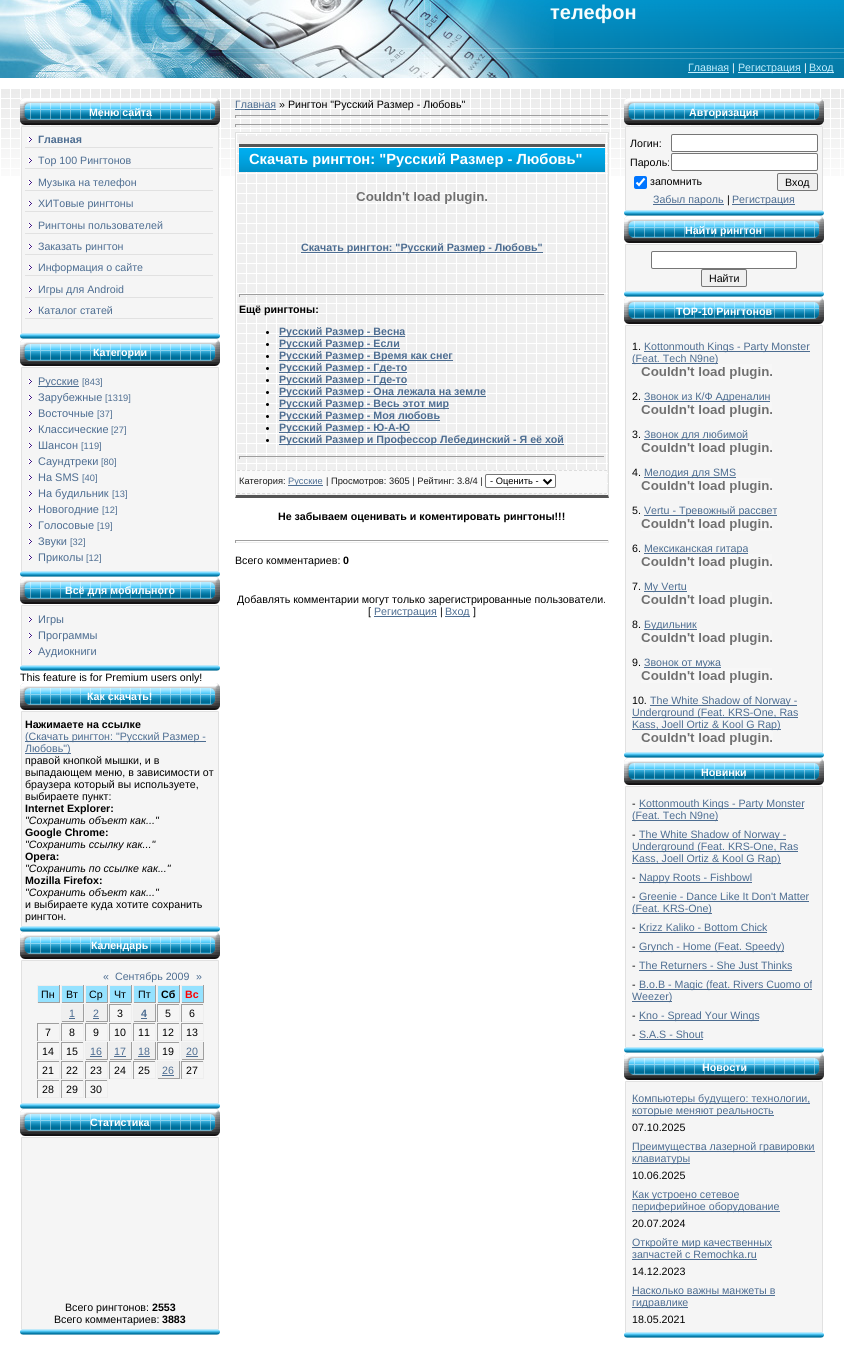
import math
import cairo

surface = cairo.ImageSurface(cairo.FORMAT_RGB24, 844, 1364)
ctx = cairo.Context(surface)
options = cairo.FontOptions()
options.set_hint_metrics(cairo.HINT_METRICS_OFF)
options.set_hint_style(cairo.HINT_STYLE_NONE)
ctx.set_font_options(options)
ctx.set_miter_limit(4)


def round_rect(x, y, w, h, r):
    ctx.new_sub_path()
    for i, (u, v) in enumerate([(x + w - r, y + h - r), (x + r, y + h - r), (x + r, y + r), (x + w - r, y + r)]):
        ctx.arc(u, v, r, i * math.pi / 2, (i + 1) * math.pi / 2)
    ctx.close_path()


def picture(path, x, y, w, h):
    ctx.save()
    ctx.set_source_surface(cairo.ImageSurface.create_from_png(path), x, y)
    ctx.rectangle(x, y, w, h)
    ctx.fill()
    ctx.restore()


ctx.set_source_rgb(1, 1, 1)
ctx.paint()
picture("img1.png", 0, 0, 844, 176)
picture("img2.png", 0, 0, 554, 48)
ctx.select_font_face("Liberation Sans", cairo.FONT_SLANT_NORMAL, cairo.FONT_WEIGHT_BOLD)
ctx.set_font_size(20)
ctx.set_source_rgb(0.969, 0.992, 0.992)
ctx.move_to(550, 19)
ctx.show_text("телефон")
picture("img3.png", 0, 48, 560, 30)
ctx.select_font_face("Liberation Sans")
ctx.set_font_size(10.65)
ctx.set_source_rgb(0.773, 0.941, 1)
ctx.move_to(688, 71)
ctx.show_text("Главная")
ctx.rectangle(688, 72, 41, 1)
ctx.fill()
ctx.set_source_rgb(1, 1, 1)
ctx.move_to(732, 71)
ctx.show_text("|")
ctx.set_source_rgb(0.773, 0.941, 1)
ctx.rectangle(738, 72, 63, 1)
ctx.fill()
ctx.move_to(738, 71)
ctx.show_text("Регистрация")
ctx.set_source_rgb(1, 1, 1)
ctx.move_to(804, 71)
ctx.show_text("|")
ctx.set_source_rgb(0.773, 0.941, 1)
ctx.rectangle(809, 72, 25, 1)
ctx.fill()
ctx.move_to(809, 71)
ctx.show_text("Вход")
picture("img4.png", 20, 98, 200, 30)
ctx.select_font_face("Liberation Sans", cairo.FONT_SLANT_NORMAL, cairo.FONT_WEIGHT_BOLD)
ctx.set_source_rgb(1, 1, 1)
ctx.move_to(89, 116)
ctx.show_text("Меню сайта")
picture("img5.png", 20, 128, 200, 211)
picture("img6.png", 27, 137, 2, 5)
picture("img7.png", 28, 137, 4, 5)
ctx.set_source_rgb(0.882, 0.882, 0.882)
ctx.rectangle(25, 147, 188, 1)
ctx.fill()
ctx.set_source_rgb(0.302, 0.427, 0.569)
ctx.move_to(38, 143)
ctx.show_text("Главная")
picture("img8.png", 28, 158, 4, 5)
ctx.set_source_rgb(0.882, 0.882, 0.882)
ctx.rectangle(25, 168, 188, 1)
ctx.fill()
ctx.select_font_face("Liberation Sans")
ctx.set_source_rgb(0.302, 0.427, 0.569)
ctx.move_to(38, 164)
ctx.show_text("Top 100 Рингтонов")
picture("img8.png", 28, 180, 4, 5)
ctx.set_source_rgb(0.882, 0.882, 0.882)
ctx.rectangle(25, 190, 188, 1)
ctx.fill()
ctx.set_source_rgb(0.302, 0.427, 0.569)
ctx.move_to(38, 186)
ctx.show_text("Музыка на телефон")
picture("img8.png", 28, 201, 4, 5)
ctx.set_source_rgb(0.882, 0.882, 0.882)
ctx.rectangle(25, 211, 188, 1)
ctx.fill()
ctx.set_source_rgb(0.302, 0.427, 0.569)
ctx.move_to(38, 207)
ctx.show_text("ХИТовые рингтоны")
picture("img8.png", 28, 223, 4, 5)
ctx.set_source_rgb(0.882, 0.882, 0.882)
ctx.rectangle(25, 233, 188, 1)
ctx.fill()
ctx.set_source_rgb(0.302, 0.427, 0.569)
ctx.move_to(38, 229)
ctx.show_text("Рингтоны пользователей")
picture("img8.png", 28, 244, 4, 5)
ctx.set_source_rgb(0.882, 0.882, 0.882)
ctx.rectangle(25, 254, 188, 1)
ctx.fill()
ctx.set_source_rgb(0.302, 0.427, 0.569)
ctx.move_to(38, 250)
ctx.show_text("Заказать рингтон")
picture("img8.png", 28, 265, 4, 5)
ctx.set_source_rgb(0.882, 0.882, 0.882)
ctx.rectangle(25, 275, 188, 1)
ctx.fill()
ctx.set_source_rgb(0.302, 0.427, 0.569)
ctx.move_to(38, 271)
ctx.show_text("Информация о сайте")
picture("img8.png", 28, 287, 4, 5)
ctx.set_source_rgb(0.882, 0.882, 0.882)
ctx.rectangle(25, 297, 188, 1)
ctx.fill()
ctx.set_source_rgb(0.302, 0.427, 0.569)
ctx.move_to(38, 293)
ctx.show_text("Игры для Android")
picture("img8.png", 28, 308, 4, 5)
ctx.set_source_rgb(0.882, 0.882, 0.882)
ctx.rectangle(25, 318, 188, 1)
ctx.fill()
ctx.set_source_rgb(0.302, 0.427, 0.569)
ctx.move_to(38, 314)
ctx.show_text("Каталог статей")
picture("img9.png", 20, 339, 200, 30)
ctx.select_font_face("Liberation Sans", cairo.FONT_SLANT_NORMAL, cairo.FONT_WEIGHT_BOLD)
ctx.set_source_rgb(1, 1, 1)
ctx.move_to(93, 356)
ctx.show_text("Категории")
picture("img10.png", 20, 369, 200, 208)
picture("img8.png", 28, 379, 4, 5)
ctx.set_source_rgb(0.302, 0.427, 0.569)
ctx.rectangle(38, 386, 41, 1)
ctx.fill()
ctx.select_font_face("Liberation Sans")
ctx.set_font_size(11)
ctx.move_to(38, 385)
ctx.show_text("Русские")
ctx.set_font_size(9.3)
ctx.move_to(82, 385)
ctx.show_text("[843]")
picture("img8.png", 28, 395, 4, 5)
ctx.set_font_size(11)
ctx.move_to(38, 401)
ctx.show_text("Зарубежные")
ctx.set_font_size(9.3)
ctx.move_to(105, 401)
ctx.show_text("[1319]")
picture("img8.png", 28, 411, 4, 5)
ctx.set_font_size(11)
ctx.move_to(38, 417)
ctx.show_text("Восточные")
ctx.set_font_size(9.3)
ctx.move_to(97, 417)
ctx.show_text("[37]")
picture("img8.png", 28, 427, 4, 5)
ctx.set_font_size(11)
ctx.move_to(38, 433)
ctx.show_text("Классические")
ctx.set_font_size(9.3)
ctx.move_to(111, 433)
ctx.show_text("[27]")
picture("img8.png", 28, 443, 4, 5)
ctx.set_font_size(11)
ctx.move_to(38, 449)
ctx.show_text("Шансон")
ctx.set_font_size(9.3)
ctx.move_to(81, 449)
ctx.show_text("[119]")
picture("img8.png", 28, 459, 4, 5)
ctx.set_font_size(11)
ctx.move_to(38, 465)
ctx.show_text("Саундтреки")
ctx.set_font_size(9.3)
ctx.move_to(101, 465)
ctx.show_text("[80]")
picture("img8.png", 28, 475, 4, 5)
ctx.set_font_size(11)
ctx.move_to(38, 481)
ctx.show_text("На SMS")
ctx.set_font_size(9.3)
ctx.move_to(82, 481)
ctx.show_text("[40]")
picture("img8.png", 28, 491, 4, 5)
ctx.set_font_size(11)
ctx.move_to(38, 497)
ctx.show_text("На будильник")
ctx.set_font_size(9.3)
ctx.move_to(112, 497)
ctx.show_text("[13]")
picture("img8.png", 28, 507, 4, 5)
ctx.set_font_size(11)
ctx.move_to(38, 513)
ctx.show_text("Новогодние")
ctx.set_font_size(9.3)
ctx.move_to(102, 513)
ctx.show_text("[12]")
picture("img8.png", 28, 523, 4, 5)
ctx.set_font_size(11)
ctx.move_to(38, 529)
ctx.show_text("Голосовые")
ctx.set_font_size(9.3)
ctx.move_to(97, 529)
ctx.show_text("[19]")
picture("img8.png", 28, 539, 4, 5)
ctx.set_font_size(11)
ctx.move_to(38, 545)
ctx.show_text("Звуки")
ctx.set_font_size(9.3)
ctx.move_to(70, 545)
ctx.show_text("[32]")
picture("img8.png", 28, 555, 4, 5)
ctx.set_font_size(11)
ctx.move_to(38, 561)
ctx.show_text("Приколы")
ctx.set_font_size(9.3)
ctx.move_to(86, 561)
ctx.show_text("[12]")
picture("img9.png", 20, 577, 200, 30)
ctx.select_font_face("Liberation Sans", cairo.FONT_SLANT_NORMAL, cairo.FONT_WEIGHT_BOLD)
ctx.set_font_size(10.65)
ctx.set_source_rgb(1, 1, 1)
ctx.move_to(65, 594)
ctx.show_text("Всё для мобильного")
picture("img11.png", 20, 607, 200, 64)
picture("img8.png", 28, 617, 4, 5)
ctx.select_font_face("Liberation Sans")
ctx.set_font_size(11)
ctx.set_source_rgb(0.302, 0.427, 0.569)
ctx.move_to(38, 623)
ctx.show_text("Игры")
picture("img8.png", 28, 633, 4, 5)
ctx.move_to(38, 639)
ctx.show_text("Программы")
picture("img8.png", 28, 649, 4, 5)
ctx.move_to(38, 655)
ctx.show_text("Аудиокниги")
picture("img9.png", 20, 683, 200, 30)
ctx.set_font_size(10.65)
ctx.set_source_rgb(0, 0, 0)
ctx.move_to(20, 681)
ctx.show_text("This feature is for Premium users only!")
ctx.select_font_face("Liberation Sans", cairo.FONT_SLANT_NORMAL, cairo.FONT_WEIGHT_BOLD)
ctx.set_source_rgb(1, 1, 1)
ctx.move_to(87, 700)
ctx.show_text("Как скачать!")
picture("img12.png", 20, 713, 200, 219)
ctx.set_source_rgb(0, 0, 0)
ctx.move_to(25, 728)
ctx.show_text("Нажимаете на ссылке")
ctx.set_source_rgb(0.302, 0.427, 0.569)
ctx.rectangle(25, 741, 181, 1)
ctx.fill()
ctx.select_font_face("Liberation Sans")
ctx.move_to(25, 740)
ctx.show_text("(Скачать рингтон: \"Русский Размер -")
ctx.rectangle(25, 753, 46, 1)
ctx.fill()
ctx.move_to(25, 752)
ctx.show_text("Любовь\")")
ctx.set_source_rgb(0, 0, 0)
ctx.move_to(25, 764)
ctx.show_text("правой кнопкой мышки, и в")
ctx.move_to(25, 776)
ctx.show_text("выпадающем меню, в зависимости от")
ctx.move_to(25, 788)
ctx.show_text("браузера который вы используете,")
ctx.move_to(25, 800)
ctx.show_text("выбираете пункт:")
ctx.select_font_face("Liberation Sans", cairo.FONT_SLANT_NORMAL, cairo.FONT_WEIGHT_BOLD)
ctx.move_to(25, 812)
ctx.show_text("Internet Explorer:")
ctx.select_font_face("Liberation Sans", cairo.FONT_SLANT_ITALIC)
ctx.move_to(25, 824)
ctx.show_text("\"Сохранить объект как...\"")
ctx.select_font_face("Liberation Sans", cairo.FONT_SLANT_NORMAL, cairo.FONT_WEIGHT_BOLD)
ctx.move_to(25, 836)
ctx.show_text("Google Chrome:")
ctx.select_font_face("Liberation Sans", cairo.FONT_SLANT_ITALIC)
ctx.move_to(25, 848)
ctx.show_text("\"Сохранить ссылку как...\"")
ctx.select_font_face("Liberation Sans", cairo.FONT_SLANT_NORMAL, cairo.FONT_WEIGHT_BOLD)
ctx.move_to(25, 860)
ctx.show_text("Opera:")
ctx.select_font_face("Liberation Sans", cairo.FONT_SLANT_ITALIC)
ctx.move_to(25, 872)
ctx.show_text("\"Сохранить по ссылке как...\"")
ctx.select_font_face("Liberation Sans", cairo.FONT_SLANT_NORMAL, cairo.FONT_WEIGHT_BOLD)
ctx.move_to(25, 884)
ctx.show_text("Mozilla Firefox:")
ctx.select_font_face("Liberation Sans", cairo.FONT_SLANT_ITALIC)
ctx.move_to(25, 896)
ctx.show_text("\"Сохранить объект как...\"")
ctx.select_font_face("Liberation Sans")
ctx.move_to(25, 908)
ctx.show_text("и выбираете куда хотите сохранить")
ctx.move_to(25, 920)
ctx.show_text("рингтон.")
picture("img9.png", 20, 932, 200, 30)
ctx.select_font_face("Liberation Sans", cairo.FONT_SLANT_NORMAL, cairo.FONT_WEIGHT_BOLD)
ctx.set_source_rgb(1, 1, 1)
ctx.move_to(91, 949)
ctx.show_text("Календарь")
picture("img13.png", 20, 962, 200, 147)
ctx.select_font_face("Liberation Sans")
ctx.set_source_rgb(0.302, 0.427, 0.569)
ctx.move_to(103, 980)
ctx.show_text("«")
ctx.move_to(115, 980)
ctx.show_text("Сентябрь 2009")
ctx.move_to(196, 980)
ctx.show_text("»")
ctx.set_source_rgb(0.584, 0.886, 1)
ctx.rectangle(38, 986, 21, 16)
ctx.fill()
ctx.set_source_rgb(0.933, 0.933, 0.933)
ctx.rectangle(37, 985, 23, 1)
ctx.fill()
ctx.set_source_rgb(0.624, 0.624, 0.624)
ctx.rectangle(59, 985, 1, 18)
ctx.fill()
ctx.rectangle(37, 1002, 23, 1)
ctx.fill()
ctx.set_source_rgb(0.933, 0.933, 0.933)
ctx.rectangle(37, 985, 1, 18)
ctx.fill()
ctx.set_source_rgb(0, 0, 0)
ctx.move_to(41, 998)
ctx.show_text("Пн")
ctx.set_source_rgb(0.584, 0.886, 1)
ctx.rectangle(62, 986, 21, 16)
ctx.fill()
ctx.set_source_rgb(0.933, 0.933, 0.933)
ctx.rectangle(61, 985, 23, 1)
ctx.fill()
ctx.set_source_rgb(0.624, 0.624, 0.624)
ctx.rectangle(83, 985, 1, 18)
ctx.fill()
ctx.rectangle(61, 1002, 23, 1)
ctx.fill()
ctx.set_source_rgb(0.933, 0.933, 0.933)
ctx.rectangle(61, 985, 1, 18)
ctx.fill()
ctx.set_source_rgb(0, 0, 0)
ctx.move_to(66, 998)
ctx.show_text("Вт")
ctx.set_source_rgb(0.584, 0.886, 1)
ctx.rectangle(86, 986, 21, 16)
ctx.fill()
ctx.set_source_rgb(0.933, 0.933, 0.933)
ctx.rectangle(85, 985, 23, 1)
ctx.fill()
ctx.set_source_rgb(0.624, 0.624, 0.624)
ctx.rectangle(107, 985, 1, 18)
ctx.fill()
ctx.rectangle(85, 1002, 23, 1)
ctx.fill()
ctx.set_source_rgb(0.933, 0.933, 0.933)
ctx.rectangle(85, 985, 1, 18)
ctx.fill()
ctx.set_source_rgb(0, 0, 0)
ctx.move_to(89, 998)
ctx.show_text("Ср")
ctx.set_source_rgb(0.584, 0.886, 1)
ctx.rectangle(110, 986, 21, 16)
ctx.fill()
ctx.set_source_rgb(0.933, 0.933, 0.933)
ctx.rectangle(109, 985, 23, 1)
ctx.fill()
ctx.set_source_rgb(0.624, 0.624, 0.624)
ctx.rectangle(131, 985, 1, 18)
ctx.fill()
ctx.rectangle(109, 1002, 23, 1)
ctx.fill()
ctx.set_source_rgb(0.933, 0.933, 0.933)
ctx.rectangle(109, 985, 1, 18)
ctx.fill()
ctx.set_source_rgb(0, 0, 0)
ctx.move_to(114, 998)
ctx.show_text("Чт")
ctx.set_source_rgb(0.584, 0.886, 1)
ctx.rectangle(134, 986, 21, 16)
ctx.fill()
ctx.set_source_rgb(0.933, 0.933, 0.933)
ctx.rectangle(133, 985, 23, 1)
ctx.fill()
ctx.set_source_rgb(0.624, 0.624, 0.624)
ctx.rectangle(155, 985, 1, 18)
ctx.fill()
ctx.rectangle(133, 1002, 23, 1)
ctx.fill()
ctx.set_source_rgb(0.933, 0.933, 0.933)
ctx.rectangle(133, 985, 1, 18)
ctx.fill()
ctx.set_source_rgb(0, 0, 0)
ctx.move_to(138, 998)
ctx.show_text("Пт")
ctx.set_source_rgb(0.584, 0.886, 1)
ctx.rectangle(158, 986, 21, 16)
ctx.fill()
ctx.set_source_rgb(0.933, 0.933, 0.933)
ctx.rectangle(157, 985, 23, 1)
ctx.fill()
ctx.set_source_rgb(0.624, 0.624, 0.624)
ctx.rectangle(179, 985, 1, 18)
ctx.fill()
ctx.rectangle(157, 1002, 23, 1)
ctx.fill()
ctx.set_source_rgb(0.933, 0.933, 0.933)
ctx.rectangle(157, 985, 1, 18)
ctx.fill()
ctx.select_font_face("Liberation Sans", cairo.FONT_SLANT_NORMAL, cairo.FONT_WEIGHT_BOLD)
ctx.set_source_rgb(0, 0, 0)
ctx.move_to(161, 998)
ctx.show_text("Сб")
ctx.set_source_rgb(0.584, 0.886, 1)
ctx.rectangle(182, 986, 21, 16)
ctx.fill()
ctx.set_source_rgb(0.933, 0.933, 0.933)
ctx.rectangle(181, 985, 23, 1)
ctx.fill()
ctx.set_source_rgb(0.624, 0.624, 0.624)
ctx.rectangle(203, 985, 1, 18)
ctx.fill()
ctx.rectangle(181, 1002, 23, 1)
ctx.fill()
ctx.set_source_rgb(0.933, 0.933, 0.933)
ctx.rectangle(181, 985, 1, 18)
ctx.fill()
ctx.set_source_rgb(1, 0, 0)
ctx.move_to(185, 998)
ctx.show_text("Вс")
ctx.set_source_rgb(0.937, 0.937, 0.937)
ctx.rectangle(62, 1004, 21, 17)
ctx.fill()
ctx.set_source_rgb(0.624, 0.624, 0.624)
ctx.rectangle(83, 1004, 1, 18)
ctx.fill()
ctx.rectangle(61, 1021, 23, 1)
ctx.fill()
ctx.set_source_rgb(0.933, 0.933, 0.933)
ctx.rectangle(61, 1004, 1, 18)
ctx.fill()
ctx.select_font_face("Liberation Sans")
ctx.set_source_rgb(0.302, 0.427, 0.569)
ctx.move_to(69, 1017)
ctx.show_text("1")
ctx.rectangle(69, 1018, 6, 1)
ctx.fill()
ctx.set_source_rgb(0.937, 0.937, 0.937)
ctx.rectangle(86, 1004, 21, 17)
ctx.fill()
ctx.set_source_rgb(0.624, 0.624, 0.624)
ctx.rectangle(107, 1004, 1, 18)
ctx.fill()
ctx.rectangle(85, 1021, 23, 1)
ctx.fill()
ctx.set_source_rgb(0.933, 0.933, 0.933)
ctx.rectangle(85, 1004, 1, 18)
ctx.fill()
ctx.set_source_rgb(0.302, 0.427, 0.569)
ctx.move_to(93, 1017)
ctx.show_text("2")
ctx.rectangle(93, 1018, 6, 1)
ctx.fill()
ctx.set_source_rgb(0.624, 0.624, 0.624)
ctx.rectangle(109, 1004, 23, 1)
ctx.fill()
ctx.set_source_rgb(0.933, 0.933, 0.933)
ctx.rectangle(131, 1004, 1, 18)
ctx.fill()
ctx.rectangle(109, 1021, 23, 1)
ctx.fill()
ctx.set_source_rgb(0.624, 0.624, 0.624)
ctx.rectangle(109, 1004, 1, 18)
ctx.fill()
ctx.set_source_rgb(0, 0, 0)
ctx.move_to(117, 1017)
ctx.show_text("3")
ctx.set_source_rgb(0.937, 0.937, 0.937)
ctx.rectangle(134, 1004, 21, 17)
ctx.fill()
ctx.set_source_rgb(0.624, 0.624, 0.624)
ctx.rectangle(155, 1004, 1, 18)
ctx.fill()
ctx.rectangle(133, 1021, 23, 1)
ctx.fill()
ctx.set_source_rgb(0.933, 0.933, 0.933)
ctx.rectangle(133, 1004, 1, 18)
ctx.fill()
ctx.select_font_face("Liberation Sans", cairo.FONT_SLANT_NORMAL, cairo.FONT_WEIGHT_BOLD)
ctx.set_source_rgb(0.302, 0.427, 0.569)
ctx.move_to(141, 1017)
ctx.show_text("4")
ctx.rectangle(141, 1018, 6, 1)
ctx.fill()
ctx.set_source_rgb(0.624, 0.624, 0.624)
ctx.rectangle(157, 1004, 23, 1)
ctx.fill()
ctx.set_source_rgb(0.933, 0.933, 0.933)
ctx.rectangle(179, 1004, 1, 18)
ctx.fill()
ctx.rectangle(157, 1021, 23, 1)
ctx.fill()
ctx.set_source_rgb(0.624, 0.624, 0.624)
ctx.rectangle(157, 1004, 1, 18)
ctx.fill()
ctx.select_font_face("Liberation Sans")
ctx.set_source_rgb(0, 0, 0)
ctx.move_to(165, 1017)
ctx.show_text("5")
ctx.set_source_rgb(0.624, 0.624, 0.624)
ctx.rectangle(181, 1004, 23, 1)
ctx.fill()
ctx.set_source_rgb(0.933, 0.933, 0.933)
ctx.rectangle(203, 1004, 1, 18)
ctx.fill()
ctx.rectangle(181, 1021, 23, 1)
ctx.fill()
ctx.set_source_rgb(0.624, 0.624, 0.624)
ctx.rectangle(181, 1004, 1, 18)
ctx.fill()
ctx.set_source_rgb(0, 0, 0)
ctx.move_to(189, 1017)
ctx.show_text("6")
ctx.set_source_rgb(0.624, 0.624, 0.624)
ctx.rectangle(37, 1023, 23, 1)
ctx.fill()
ctx.set_source_rgb(0.933, 0.933, 0.933)
ctx.rectangle(59, 1023, 1, 18)
ctx.fill()
ctx.rectangle(37, 1040, 23, 1)
ctx.fill()
ctx.set_source_rgb(0.624, 0.624, 0.624)
ctx.rectangle(37, 1023, 1, 18)
ctx.fill()
ctx.set_source_rgb(0, 0, 0)
ctx.move_to(45, 1036)
ctx.show_text("7")
ctx.set_source_rgb(0.624, 0.624, 0.624)
ctx.rectangle(61, 1023, 23, 1)
ctx.fill()
ctx.set_source_rgb(0.933, 0.933, 0.933)
ctx.rectangle(83, 1023, 1, 18)
ctx.fill()
ctx.rectangle(61, 1040, 23, 1)
ctx.fill()
ctx.set_source_rgb(0.624, 0.624, 0.624)
ctx.rectangle(61, 1023, 1, 18)
ctx.fill()
ctx.set_source_rgb(0, 0, 0)
ctx.move_to(69, 1036)
ctx.show_text("8")
ctx.set_source_rgb(0.624, 0.624, 0.624)
ctx.rectangle(85, 1023, 23, 1)
ctx.fill()
ctx.set_source_rgb(0.933, 0.933, 0.933)
ctx.rectangle(107, 1023, 1, 18)
ctx.fill()
ctx.rectangle(85, 1040, 23, 1)
ctx.fill()
ctx.set_source_rgb(0.624, 0.624, 0.624)
ctx.rectangle(85, 1023, 1, 18)
ctx.fill()
ctx.set_source_rgb(0, 0, 0)
ctx.move_to(93, 1036)
ctx.show_text("9")
ctx.set_source_rgb(0.624, 0.624, 0.624)
ctx.rectangle(109, 1023, 23, 1)
ctx.fill()
ctx.set_source_rgb(0.933, 0.933, 0.933)
ctx.rectangle(131, 1023, 1, 18)
ctx.fill()
ctx.rectangle(109, 1040, 23, 1)
ctx.fill()
ctx.set_source_rgb(0.624, 0.624, 0.624)
ctx.rectangle(109, 1023, 1, 18)
ctx.fill()
ctx.set_source_rgb(0, 0, 0)
ctx.move_to(114, 1036)
ctx.show_text("10")
ctx.set_source_rgb(0.624, 0.624, 0.624)
ctx.rectangle(133, 1023, 23, 1)
ctx.fill()
ctx.set_source_rgb(0.933, 0.933, 0.933)
ctx.rectangle(155, 1023, 1, 18)
ctx.fill()
ctx.rectangle(133, 1040, 23, 1)
ctx.fill()
ctx.set_source_rgb(0.624, 0.624, 0.624)
ctx.rectangle(133, 1023, 1, 18)
ctx.fill()
ctx.set_source_rgb(0, 0, 0)
ctx.move_to(138, 1036)
ctx.show_text("11")
ctx.set_source_rgb(0.624, 0.624, 0.624)
ctx.rectangle(157, 1023, 23, 1)
ctx.fill()
ctx.set_source_rgb(0.933, 0.933, 0.933)
ctx.rectangle(179, 1023, 1, 18)
ctx.fill()
ctx.rectangle(157, 1040, 23, 1)
ctx.fill()
ctx.set_source_rgb(0.624, 0.624, 0.624)
ctx.rectangle(157, 1023, 1, 18)
ctx.fill()
ctx.set_source_rgb(0, 0, 0)
ctx.move_to(162, 1036)
ctx.show_text("12")
ctx.set_source_rgb(0.624, 0.624, 0.624)
ctx.rectangle(181, 1023, 23, 1)
ctx.fill()
ctx.set_source_rgb(0.933, 0.933, 0.933)
ctx.rectangle(203, 1023, 1, 18)
ctx.fill()
ctx.rectangle(181, 1040, 23, 1)
ctx.fill()
ctx.set_source_rgb(0.624, 0.624, 0.624)
ctx.rectangle(181, 1023, 1, 18)
ctx.fill()
ctx.set_source_rgb(0, 0, 0)
ctx.move_to(186, 1036)
ctx.show_text("13")
ctx.set_source_rgb(0.624, 0.624, 0.624)
ctx.rectangle(37, 1042, 23, 1)
ctx.fill()
ctx.set_source_rgb(0.933, 0.933, 0.933)
ctx.rectangle(59, 1042, 1, 18)
ctx.fill()
ctx.rectangle(37, 1059, 23, 1)
ctx.fill()
ctx.set_source_rgb(0.624, 0.624, 0.624)
ctx.rectangle(37, 1042, 1, 18)
ctx.fill()
ctx.set_source_rgb(0, 0, 0)
ctx.move_to(42, 1055)
ctx.show_text("14")
ctx.set_source_rgb(0.624, 0.624, 0.624)
ctx.rectangle(61, 1042, 23, 1)
ctx.fill()
ctx.set_source_rgb(0.933, 0.933, 0.933)
ctx.rectangle(83, 1042, 1, 18)
ctx.fill()
ctx.rectangle(61, 1059, 23, 1)
ctx.fill()
ctx.set_source_rgb(0.624, 0.624, 0.624)
ctx.rectangle(61, 1042, 1, 18)
ctx.fill()
ctx.set_source_rgb(0, 0, 0)
ctx.move_to(66, 1055)
ctx.show_text("15")
ctx.set_source_rgb(0.937, 0.937, 0.937)
ctx.rectangle(86, 1042, 21, 17)
ctx.fill()
ctx.set_source_rgb(0.624, 0.624, 0.624)
ctx.rectangle(107, 1042, 1, 18)
ctx.fill()
ctx.rectangle(85, 1059, 23, 1)
ctx.fill()
ctx.set_source_rgb(0.933, 0.933, 0.933)
ctx.rectangle(85, 1042, 1, 18)
ctx.fill()
ctx.set_source_rgb(0.302, 0.427, 0.569)
ctx.move_to(90, 1055)
ctx.show_text("16")
ctx.rectangle(90, 1056, 12, 1)
ctx.fill()
ctx.set_source_rgb(0.937, 0.937, 0.937)
ctx.rectangle(110, 1042, 21, 17)
ctx.fill()
ctx.set_source_rgb(0.624, 0.624, 0.624)
ctx.rectangle(131, 1042, 1, 18)
ctx.fill()
ctx.rectangle(109, 1059, 23, 1)
ctx.fill()
ctx.set_source_rgb(0.933, 0.933, 0.933)
ctx.rectangle(109, 1042, 1, 18)
ctx.fill()
ctx.set_source_rgb(0.302, 0.427, 0.569)
ctx.move_to(114, 1055)
ctx.show_text("17")
ctx.rectangle(114, 1056, 12, 1)
ctx.fill()
ctx.set_source_rgb(0.937, 0.937, 0.937)
ctx.rectangle(134, 1042, 21, 17)
ctx.fill()
ctx.set_source_rgb(0.624, 0.624, 0.624)
ctx.rectangle(155, 1042, 1, 18)
ctx.fill()
ctx.rectangle(133, 1059, 23, 1)
ctx.fill()
ctx.set_source_rgb(0.933, 0.933, 0.933)
ctx.rectangle(133, 1042, 1, 18)
ctx.fill()
ctx.set_source_rgb(0.302, 0.427, 0.569)
ctx.move_to(138, 1055)
ctx.show_text("18")
ctx.rectangle(138, 1056, 12, 1)
ctx.fill()
ctx.set_source_rgb(0.624, 0.624, 0.624)
ctx.rectangle(157, 1042, 23, 1)
ctx.fill()
ctx.set_source_rgb(0.933, 0.933, 0.933)
ctx.rectangle(179, 1042, 1, 18)
ctx.fill()
ctx.rectangle(157, 1059, 23, 1)
ctx.fill()
ctx.set_source_rgb(0.624, 0.624, 0.624)
ctx.rectangle(157, 1042, 1, 18)
ctx.fill()
ctx.set_source_rgb(0, 0, 0)
ctx.move_to(162, 1055)
ctx.show_text("19")
ctx.set_source_rgb(0.937, 0.937, 0.937)
ctx.rectangle(182, 1042, 21, 17)
ctx.fill()
ctx.set_source_rgb(0.624, 0.624, 0.624)
ctx.rectangle(203, 1042, 1, 18)
ctx.fill()
ctx.rectangle(181, 1059, 23, 1)
ctx.fill()
ctx.set_source_rgb(0.933, 0.933, 0.933)
ctx.rectangle(181, 1042, 1, 18)
ctx.fill()
ctx.set_source_rgb(0.302, 0.427, 0.569)
ctx.move_to(186, 1055)
ctx.show_text("20")
ctx.rectangle(186, 1056, 12, 1)
ctx.fill()
ctx.set_source_rgb(0.624, 0.624, 0.624)
ctx.rectangle(37, 1061, 23, 1)
ctx.fill()
ctx.set_source_rgb(0.933, 0.933, 0.933)
ctx.rectangle(59, 1061, 1, 18)
ctx.fill()
ctx.rectangle(37, 1078, 23, 1)
ctx.fill()
ctx.set_source_rgb(0.624, 0.624, 0.624)
ctx.rectangle(37, 1061, 1, 18)
ctx.fill()
ctx.set_source_rgb(0, 0, 0)
ctx.move_to(42, 1074)
ctx.show_text("21")
ctx.set_source_rgb(0.624, 0.624, 0.624)
ctx.rectangle(61, 1061, 23, 1)
ctx.fill()
ctx.set_source_rgb(0.933, 0.933, 0.933)
ctx.rectangle(83, 1061, 1, 18)
ctx.fill()
ctx.rectangle(61, 1078, 23, 1)
ctx.fill()
ctx.set_source_rgb(0.624, 0.624, 0.624)
ctx.rectangle(61, 1061, 1, 18)
ctx.fill()
ctx.set_source_rgb(0, 0, 0)
ctx.move_to(66, 1074)
ctx.show_text("22")
ctx.set_source_rgb(0.624, 0.624, 0.624)
ctx.rectangle(85, 1061, 23, 1)
ctx.fill()
ctx.set_source_rgb(0.933, 0.933, 0.933)
ctx.rectangle(107, 1061, 1, 18)
ctx.fill()
ctx.rectangle(85, 1078, 23, 1)
ctx.fill()
ctx.set_source_rgb(0.624, 0.624, 0.624)
ctx.rectangle(85, 1061, 1, 18)
ctx.fill()
ctx.set_source_rgb(0, 0, 0)
ctx.move_to(90, 1074)
ctx.show_text("23")
ctx.set_source_rgb(0.624, 0.624, 0.624)
ctx.rectangle(109, 1061, 23, 1)
ctx.fill()
ctx.set_source_rgb(0.933, 0.933, 0.933)
ctx.rectangle(131, 1061, 1, 18)
ctx.fill()
ctx.rectangle(109, 1078, 23, 1)
ctx.fill()
ctx.set_source_rgb(0.624, 0.624, 0.624)
ctx.rectangle(109, 1061, 1, 18)
ctx.fill()
ctx.set_source_rgb(0, 0, 0)
ctx.move_to(114, 1074)
ctx.show_text("24")
ctx.set_source_rgb(0.624, 0.624, 0.624)
ctx.rectangle(133, 1061, 23, 1)
ctx.fill()
ctx.set_source_rgb(0.933, 0.933, 0.933)
ctx.rectangle(155, 1061, 1, 18)
ctx.fill()
ctx.rectangle(133, 1078, 23, 1)
ctx.fill()
ctx.set_source_rgb(0.624, 0.624, 0.624)
ctx.rectangle(133, 1061, 1, 18)
ctx.fill()
ctx.set_source_rgb(0, 0, 0)
ctx.move_to(138, 1074)
ctx.show_text("25")
ctx.set_source_rgb(0.937, 0.937, 0.937)
ctx.rectangle(158, 1061, 21, 17)
ctx.fill()
ctx.set_source_rgb(0.624, 0.624, 0.624)
ctx.rectangle(179, 1061, 1, 18)
ctx.fill()
ctx.rectangle(157, 1078, 23, 1)
ctx.fill()
ctx.set_source_rgb(0.933, 0.933, 0.933)
ctx.rectangle(157, 1061, 1, 18)
ctx.fill()
ctx.set_source_rgb(0.302, 0.427, 0.569)
ctx.move_to(162, 1074)
ctx.show_text("26")
ctx.rectangle(162, 1075, 12, 1)
ctx.fill()
ctx.set_source_rgb(0.624, 0.624, 0.624)
ctx.rectangle(181, 1061, 23, 1)
ctx.fill()
ctx.set_source_rgb(0.933, 0.933, 0.933)
ctx.rectangle(203, 1061, 1, 18)
ctx.fill()
ctx.rectangle(181, 1078, 23, 1)
ctx.fill()
ctx.set_source_rgb(0.624, 0.624, 0.624)
ctx.rectangle(181, 1061, 1, 18)
ctx.fill()
ctx.set_source_rgb(0, 0, 0)
ctx.move_to(186, 1074)
ctx.show_text("27")
ctx.set_source_rgb(0.624, 0.624, 0.624)
ctx.rectangle(37, 1080, 23, 1)
ctx.fill()
ctx.set_source_rgb(0.933, 0.933, 0.933)
ctx.rectangle(59, 1080, 1, 18)
ctx.fill()
ctx.rectangle(37, 1097, 23, 1)
ctx.fill()
ctx.set_source_rgb(0.624, 0.624, 0.624)
ctx.rectangle(37, 1080, 1, 18)
ctx.fill()
ctx.set_source_rgb(0, 0, 0)
ctx.move_to(42, 1093)
ctx.show_text("28")
ctx.set_source_rgb(0.624, 0.624, 0.624)
ctx.rectangle(61, 1080, 23, 1)
ctx.fill()
ctx.set_source_rgb(0.933, 0.933, 0.933)
ctx.rectangle(83, 1080, 1, 18)
ctx.fill()
ctx.rectangle(61, 1097, 23, 1)
ctx.fill()
ctx.set_source_rgb(0.624, 0.624, 0.624)
ctx.rectangle(61, 1080, 1, 18)
ctx.fill()
ctx.set_source_rgb(0, 0, 0)
ctx.move_to(66, 1093)
ctx.show_text("29")
ctx.set_source_rgb(0.624, 0.624, 0.624)
ctx.rectangle(85, 1080, 23, 1)
ctx.fill()
ctx.set_source_rgb(0.933, 0.933, 0.933)
ctx.rectangle(107, 1080, 1, 18)
ctx.fill()
ctx.rectangle(85, 1097, 23, 1)
ctx.fill()
ctx.set_source_rgb(0.624, 0.624, 0.624)
ctx.rectangle(85, 1080, 1, 18)
ctx.fill()
ctx.set_source_rgb(0, 0, 0)
ctx.move_to(90, 1093)
ctx.show_text("30")
picture("img9.png", 20, 1109, 200, 30)
ctx.select_font_face("Liberation Sans", cairo.FONT_SLANT_NORMAL, cairo.FONT_WEIGHT_BOLD)
ctx.set_source_rgb(1, 1, 1)
ctx.move_to(90, 1126)
ctx.show_text("Статистика")
picture("img14.png", 20, 1139, 200, 196)
ctx.select_font_face("Liberation Sans")
ctx.set_source_rgb(0, 0, 0)
ctx.move_to(65, 1311)
ctx.show_text("Всего рингтонов:")
ctx.select_font_face("Liberation Sans", cairo.FONT_SLANT_NORMAL, cairo.FONT_WEIGHT_BOLD)
ctx.move_to(152, 1311)
ctx.show_text("2553")
ctx.select_font_face("Liberation Sans")
ctx.move_to(54, 1323)
ctx.show_text("Всего комментариев:")
ctx.select_font_face("Liberation Sans", cairo.FONT_SLANT_NORMAL, cairo.FONT_WEIGHT_BOLD)
ctx.move_to(162, 1323)
ctx.show_text("3883")
ctx.select_font_face("Liberation Sans")
ctx.set_source_rgb(0.302, 0.427, 0.569)
ctx.move_to(235, 108)
ctx.show_text("Главная")
ctx.rectangle(235, 109, 41, 1)
ctx.fill()
ctx.set_source_rgb(0, 0, 0)
ctx.move_to(279, 108)
ctx.show_text("» Рингтон \"Русский Размер - Любовь\"")
ctx.set_source_rgb(0.624, 0.624, 0.624)
ctx.rectangle(235, 115, 374, 1)
ctx.fill()
ctx.set_source_rgb(0.933, 0.933, 0.933)
ctx.rectangle(608, 115, 1, 3)
ctx.fill()
ctx.rectangle(235, 117, 374, 1)
ctx.fill()
ctx.set_source_rgb(0.624, 0.624, 0.624)
ctx.rectangle(235, 115, 1, 3)
ctx.fill()
ctx.rectangle(235, 124, 374, 1)
ctx.fill()
ctx.set_source_rgb(0.933, 0.933, 0.933)
ctx.rectangle(608, 124, 1, 3)
ctx.fill()
ctx.rectangle(235, 126, 374, 1)
ctx.fill()
ctx.set_source_rgb(0.624, 0.624, 0.624)
ctx.rectangle(235, 124, 1, 3)
ctx.fill()
picture("img15.png", 235, 133, 374, 365)
ctx.set_source_rgb(0.871, 0.875, 0.871)
ctx.rectangle(235, 132, 374, 1)
ctx.fill()
ctx.new_path()
ctx.move_to(609, 132)
ctx.line_to(609, 498)
ctx.line_to(608, 495)
ctx.line_to(608, 133)
ctx.close_path()
ctx.fill()
ctx.set_source_rgb(0.333, 0.333, 0.333)
ctx.new_path()
ctx.move_to(609, 498)
ctx.line_to(235, 498)
ctx.line_to(236, 495)
ctx.line_to(608, 495)
ctx.close_path()
ctx.fill()
ctx.set_source_rgb(0.871, 0.875, 0.871)
ctx.new_path()
ctx.move_to(235, 498)
ctx.line_to(235, 132)
ctx.line_to(236, 133)
ctx.line_to(236, 495)
ctx.close_path()
ctx.fill()
picture("img16.png", 239, 136, 366, 36)
ctx.select_font_face("Liberation Sans", cairo.FONT_SLANT_NORMAL, cairo.FONT_WEIGHT_BOLD)
ctx.set_font_size(14.7)
ctx.set_source_rgb(1, 1, 1)
ctx.move_to(249, 164)
ctx.show_text("Скачать рингтон: \"Русский Размер - Любовь\"")
picture("img17.png", 356, 192, 131, 12)
ctx.set_source_rgb(0.302, 0.427, 0.569)
ctx.rectangle(301, 252, 242, 1)
ctx.fill()
ctx.set_font_size(10.65)
ctx.move_to(301, 251)
ctx.show_text("Скачать рингтон: \"Русский Размер - Любовь\"")
ctx.set_source_rgb(0.624, 0.624, 0.624)
ctx.rectangle(239, 294, 366, 1)
ctx.fill()
ctx.set_source_rgb(0.933, 0.933, 0.933)
ctx.rectangle(604, 294, 1, 3)
ctx.fill()
ctx.rectangle(239, 296, 366, 1)
ctx.fill()
ctx.set_source_rgb(0.624, 0.624, 0.624)
ctx.rectangle(239, 294, 1, 3)
ctx.fill()
ctx.set_source_rgb(0, 0, 0)
ctx.move_to(239, 313)
ctx.show_text("Ещё рингтоны:")
ctx.new_path()
ctx.arc(267.5, 332.5, 1.5, 0, 2 * math.pi)
ctx.fill()
ctx.set_source_rgb(0.302, 0.427, 0.569)
ctx.rectangle(279, 336, 126, 1)
ctx.fill()
ctx.move_to(279, 335)
ctx.show_text("Русский Размер - Весна")
ctx.set_source_rgb(0, 0, 0)
ctx.new_path()
ctx.arc(267.5, 344.5, 1.5, 0, 2 * math.pi)
ctx.fill()
ctx.set_source_rgb(0.302, 0.427, 0.569)
ctx.rectangle(279, 348, 121, 1)
ctx.fill()
ctx.move_to(279, 347)
ctx.show_text("Русский Размер - Если")
ctx.set_source_rgb(0, 0, 0)
ctx.new_path()
ctx.arc(267.5, 356.5, 1.5, 0, 2 * math.pi)
ctx.fill()
ctx.set_source_rgb(0.302, 0.427, 0.569)
ctx.rectangle(279, 360, 174, 1)
ctx.fill()
ctx.move_to(279, 359)
ctx.show_text("Русский Размер - Время как снег")
ctx.set_source_rgb(0, 0, 0)
ctx.new_path()
ctx.arc(267.5, 368.5, 1.5, 0, 2 * math.pi)
ctx.fill()
ctx.set_source_rgb(0.302, 0.427, 0.569)
ctx.rectangle(279, 372, 128, 1)
ctx.fill()
ctx.move_to(279, 371)
ctx.show_text("Русский Размер - Где-то")
ctx.set_source_rgb(0, 0, 0)
ctx.new_path()
ctx.arc(267.5, 380.5, 1.5, 0, 2 * math.pi)
ctx.fill()
ctx.set_source_rgb(0.302, 0.427, 0.569)
ctx.rectangle(279, 384, 128, 1)
ctx.fill()
ctx.move_to(279, 383)
ctx.show_text("Русский Размер - Где-то")
ctx.set_source_rgb(0, 0, 0)
ctx.new_path()
ctx.arc(267.5, 392.5, 1.5, 0, 2 * math.pi)
ctx.fill()
ctx.set_source_rgb(0.302, 0.427, 0.569)
ctx.rectangle(279, 396, 207, 1)
ctx.fill()
ctx.move_to(279, 395)
ctx.show_text("Русский Размер - Она лежала на земле")
ctx.set_source_rgb(0, 0, 0)
ctx.new_path()
ctx.arc(267.5, 404.5, 1.5, 0, 2 * math.pi)
ctx.fill()
ctx.set_source_rgb(0.302, 0.427, 0.569)
ctx.rectangle(279, 408, 170, 1)
ctx.fill()
ctx.move_to(279, 407)
ctx.show_text("Русский Размер - Весь этот мир")
ctx.set_source_rgb(0, 0, 0)
ctx.new_path()
ctx.arc(267.5, 416.5, 1.5, 0, 2 * math.pi)
ctx.fill()
ctx.set_source_rgb(0.302, 0.427, 0.569)
ctx.rectangle(279, 420, 161, 1)
ctx.fill()
ctx.move_to(279, 419)
ctx.show_text("Русский Размер - Моя любовь")
ctx.set_source_rgb(0, 0, 0)
ctx.new_path()
ctx.arc(267.5, 428.5, 1.5, 0, 2 * math.pi)
ctx.fill()
ctx.set_source_rgb(0.302, 0.427, 0.569)
ctx.rectangle(279, 432, 131, 1)
ctx.fill()
ctx.move_to(279, 431)
ctx.show_text("Русский Размер - Ю-А-Ю")
ctx.set_source_rgb(0, 0, 0)
ctx.new_path()
ctx.arc(267.5, 440.5, 1.5, 0, 2 * math.pi)
ctx.fill()
ctx.set_source_rgb(0.302, 0.427, 0.569)
ctx.rectangle(279, 444, 285, 1)
ctx.fill()
ctx.move_to(279, 443)
ctx.show_text("Русский Размер и Профессор Лебединский - Я её хой")
ctx.set_source_rgb(0.624, 0.624, 0.624)
ctx.rectangle(239, 456, 366, 1)
ctx.fill()
ctx.set_source_rgb(0.933, 0.933, 0.933)
ctx.rectangle(604, 456, 1, 3)
ctx.fill()
ctx.rectangle(239, 458, 366, 1)
ctx.fill()
ctx.set_source_rgb(0.624, 0.624, 0.624)
ctx.rectangle(239, 456, 1, 3)
ctx.fill()
ctx.set_source_rgb(0.973, 0.973, 0.973)
ctx.rectangle(237, 470, 370, 24)
ctx.fill()
ctx.new_path()
ctx.move_to(237, 470.5)
ctx.line_to(607, 470.5)
ctx.set_source_rgb(0.867, 0.867, 0.867)
ctx.set_line_width(1)
ctx.set_dash([3, 2.03])
ctx.stroke()
ctx.new_path()
ctx.move_to(237, 493.5)
ctx.line_to(607, 493.5)
ctx.stroke()
ctx.select_font_face("Liberation Sans")
ctx.set_font_size(9.3)
ctx.set_source_rgb(0.102, 0.102, 0.102)
ctx.move_to(239, 484)
ctx.show_text("Категория:")
ctx.set_source_rgb(0.302, 0.427, 0.569)
ctx.rectangle(288, 485, 35, 1)
ctx.fill()
ctx.move_to(288, 484)
ctx.show_text("Русские")
ctx.set_source_rgb(0.102, 0.102, 0.102)
ctx.move_to(326, 484)
ctx.show_text("| Просмотров: 3605 | Рейтинг: 3.8/4 |")
ctx.set_source_rgb(1, 1, 1)
round_rect(485.5, 474.5, 70, 13, 1.5)
ctx.fill_preserve()
ctx.set_source_rgb(0.463, 0.463, 0.463)
ctx.set_dash([])
ctx.stroke()
ctx.new_path()
ctx.move_to(543.5, 479.5)
ctx.line_to(547.5, 483.5)
ctx.line_to(551.5, 479.5)
ctx.set_source_rgb(0, 0, 0)
ctx.set_line_width(2)
ctx.stroke()
ctx.move_to(490, 484)
ctx.show_text("- Оценить -")
ctx.select_font_face("Liberation Sans", cairo.FONT_SLANT_NORMAL, cairo.FONT_WEIGHT_BOLD)
ctx.set_font_size(10.65)
ctx.move_to(278, 520)
ctx.show_text("Не забываем оценивать и коментировать рингтоны!!!")
ctx.set_source_rgb(0.624, 0.624, 0.624)
ctx.rectangle(235, 540, 374, 1)
ctx.fill()
ctx.set_source_rgb(0.933, 0.933, 0.933)
ctx.rectangle(608, 540, 1, 3)
ctx.fill()
ctx.rectangle(235, 542, 374, 1)
ctx.fill()
ctx.set_source_rgb(0.624, 0.624, 0.624)
ctx.rectangle(235, 540, 1, 3)
ctx.fill()
ctx.select_font_face("Liberation Sans")
ctx.set_source_rgb(0, 0, 0)
ctx.move_to(235, 564)
ctx.show_text("Всего комментариев:")
ctx.select_font_face("Liberation Sans", cairo.FONT_SLANT_NORMAL, cairo.FONT_WEIGHT_BOLD)
ctx.move_to(343, 564)
ctx.show_text("0")
ctx.select_font_face("Liberation Sans")
ctx.move_to(237, 603)
ctx.show_text("Добавлять комментарии могут только зарегистрированные пользователи.")
ctx.move_to(368, 615)
ctx.show_text("[")
ctx.set_source_rgb(0.302, 0.427, 0.569)
ctx.rectangle(374, 616, 63, 1)
ctx.fill()
ctx.move_to(374, 615)
ctx.show_text("Регистрация")
ctx.set_source_rgb(0, 0, 0)
ctx.move_to(440, 615)
ctx.show_text("|")
ctx.set_source_rgb(0.302, 0.427, 0.569)
ctx.rectangle(445, 616, 25, 1)
ctx.fill()
ctx.move_to(445, 615)
ctx.show_text("Вход")
ctx.set_source_rgb(0, 0, 0)
ctx.move_to(473, 615)
ctx.show_text("]")
picture("img18.png", 624, 98, 200, 30)
ctx.select_font_face("Liberation Sans", cairo.FONT_SLANT_NORMAL, cairo.FONT_WEIGHT_BOLD)
ctx.set_source_rgb(1, 1, 1)
ctx.move_to(689, 116)
ctx.show_text("Авторизация")
picture("img19.png", 624, 128, 200, 88)
ctx.select_font_face("Liberation Sans")
ctx.set_source_rgb(0, 0, 0)
ctx.move_to(630, 147)
ctx.show_text("Логин:")
ctx.set_source_rgb(1, 1, 1)
round_rect(671.5, 134.5, 146, 17, 1.5)
ctx.fill_preserve()
ctx.set_source_rgb(0.463, 0.463, 0.463)
ctx.set_line_width(1)
ctx.stroke()
ctx.set_source_rgb(0, 0, 0)
ctx.move_to(630, 166)
ctx.show_text("Пароль:")
ctx.set_source_rgb(1, 1, 1)
round_rect(671.5, 153.5, 146, 17, 1.5)
ctx.fill_preserve()
ctx.set_source_rgb(0.463, 0.463, 0.463)
ctx.stroke()
ctx.set_source_rgb(0, 0.459, 1)
round_rect(634, 176, 13, 13, 2)
ctx.fill()
ctx.new_path()
ctx.move_to(636.5, 182.5)
ctx.line_to(639, 185)
ctx.line_to(644.5, 178.5)
ctx.set_source_rgb(1, 1, 1)
ctx.set_line_width(2.1)
ctx.stroke()
ctx.set_source_rgb(0, 0, 0)
ctx.move_to(650, 185)
ctx.show_text("запомнить")
ctx.set_source_rgb(0.937, 0.937, 0.937)
round_rect(777.5, 173.5, 40, 17, 1.5)
ctx.fill_preserve()
ctx.set_source_rgb(0.463, 0.463, 0.463)
ctx.set_line_width(1)
ctx.stroke()
ctx.set_source_rgb(0, 0, 0)
ctx.move_to(785, 186)
ctx.show_text("Вход")
ctx.set_source_rgb(0.302, 0.427, 0.569)
ctx.rectangle(653, 204, 71, 1)
ctx.fill()
ctx.move_to(653, 203)
ctx.show_text("Забыл пароль")
ctx.set_source_rgb(0, 0, 0)
ctx.move_to(727, 203)
ctx.show_text("|")
ctx.set_source_rgb(0.302, 0.427, 0.569)
ctx.rectangle(732, 204, 63, 1)
ctx.fill()
ctx.move_to(732, 203)
ctx.show_text("Регистрация")
picture("img9.png", 624, 216, 200, 30)
ctx.select_font_face("Liberation Sans", cairo.FONT_SLANT_NORMAL, cairo.FONT_WEIGHT_BOLD)
ctx.set_source_rgb(1, 1, 1)
ctx.move_to(685, 234)
ctx.show_text("Найти рингтон")
picture("img20.png", 624, 246, 200, 51)
round_rect(651.5, 251.5, 145, 17, 1.5)
ctx.fill_preserve()
ctx.set_source_rgb(0.463, 0.463, 0.463)
ctx.stroke()
ctx.set_source_rgb(0.937, 0.937, 0.937)
round_rect(701.5, 269.5, 45, 17, 1.5)
ctx.fill_preserve()
ctx.set_source_rgb(0.463, 0.463, 0.463)
ctx.stroke()
ctx.select_font_face("Liberation Sans")
ctx.set_source_rgb(0, 0, 0)
ctx.move_to(709, 282)
ctx.show_text("Найти")
picture("img9.png", 624, 297, 200, 30)
ctx.select_font_face("Liberation Sans", cairo.FONT_SLANT_NORMAL, cairo.FONT_WEIGHT_BOLD)
ctx.set_source_rgb(1, 1, 1)
ctx.move_to(676, 315)
ctx.show_text("TOP-10 Рингтонов")
picture("img21.png", 624, 327, 200, 431)
ctx.select_font_face("Liberation Sans")
ctx.set_source_rgb(0, 0, 0)
ctx.move_to(632, 350)
ctx.show_text("1.")
ctx.set_source_rgb(0.302, 0.427, 0.569)
ctx.rectangle(644, 351, 166, 1)
ctx.fill()
ctx.move_to(644, 350)
ctx.show_text("Kottonmouth Kings - Party Monster")
ctx.rectangle(632, 363, 86, 1)
ctx.fill()
ctx.move_to(632, 362)
ctx.show_text("(Feat. Tech N9ne)")
picture("img22.png", 641, 364, 131, 15)
ctx.set_source_rgb(0, 0, 0)
ctx.move_to(632, 400)
ctx.show_text("2.")
ctx.set_source_rgb(0.302, 0.427, 0.569)
ctx.rectangle(644, 401, 126, 1)
ctx.fill()
ctx.move_to(644, 400)
ctx.show_text("Звонок из К/Ф Адреналин")
picture("img23.png", 641, 402, 131, 15)
ctx.set_source_rgb(0, 0, 0)
ctx.move_to(632, 438)
ctx.show_text("3.")
ctx.set_source_rgb(0.302, 0.427, 0.569)
ctx.rectangle(644, 439, 104, 1)
ctx.fill()
ctx.move_to(644, 438)
ctx.show_text("Звонок для любимой")
picture("img24.png", 641, 440, 131, 15)
ctx.set_source_rgb(0, 0, 0)
ctx.move_to(632, 476)
ctx.show_text("4.")
ctx.set_source_rgb(0.302, 0.427, 0.569)
ctx.rectangle(644, 477, 92, 1)
ctx.fill()
ctx.move_to(644, 476)
ctx.show_text("Мелодия для SMS")
picture("img25.png", 641, 478, 131, 15)
ctx.set_source_rgb(0, 0, 0)
ctx.move_to(632, 514)
ctx.show_text("5.")
ctx.set_source_rgb(0.302, 0.427, 0.569)
ctx.rectangle(644, 515, 133, 1)
ctx.fill()
ctx.move_to(644, 514)
ctx.show_text("Vertu - Тревожный рассвет")
picture("img26.png", 641, 516, 131, 15)
ctx.set_source_rgb(0, 0, 0)
ctx.move_to(632, 552)
ctx.show_text("6.")
ctx.set_source_rgb(0.302, 0.427, 0.569)
ctx.rectangle(644, 553, 104, 1)
ctx.fill()
ctx.move_to(644, 552)
ctx.show_text("Мексиканская гитара")
picture("img27.png", 641, 554, 131, 15)
ctx.set_source_rgb(0, 0, 0)
ctx.move_to(632, 590)
ctx.show_text("7.")
ctx.set_source_rgb(0.302, 0.427, 0.569)
ctx.rectangle(644, 591, 43, 1)
ctx.fill()
ctx.move_to(644, 590)
ctx.show_text("My Vertu")
picture("img28.png", 641, 592, 131, 15)
ctx.set_source_rgb(0, 0, 0)
ctx.move_to(632, 628)
ctx.show_text("8.")
ctx.set_source_rgb(0.302, 0.427, 0.569)
ctx.rectangle(644, 629, 53, 1)
ctx.fill()
ctx.move_to(644, 628)
ctx.show_text("Будильник")
picture("img29.png", 641, 630, 131, 15)
ctx.set_source_rgb(0, 0, 0)
ctx.move_to(632, 666)
ctx.show_text("9.")
ctx.set_source_rgb(0.302, 0.427, 0.569)
ctx.rectangle(644, 667, 77, 1)
ctx.fill()
ctx.move_to(644, 666)
ctx.show_text("Звонок от мужа")
picture("img30.png", 641, 668, 131, 15)
ctx.set_source_rgb(0, 0, 0)
ctx.move_to(632, 704)
ctx.show_text("10.")
ctx.set_source_rgb(0.302, 0.427, 0.569)
ctx.rectangle(650, 705, 147, 1)
ctx.fill()
ctx.move_to(650, 704)
ctx.show_text("The White Shadow of Norway -")
ctx.rectangle(632, 717, 166, 1)
ctx.fill()
ctx.move_to(632, 716)
ctx.show_text("Underground (Feat. KRS-One, Ras")
ctx.rectangle(632, 729, 149, 1)
ctx.fill()
ctx.move_to(632, 728)
ctx.show_text("Kass, Joell Ortiz & Kool G Rap)")
picture("img31.png", 641, 730, 132, 15)
picture("img9.png", 624, 758, 200, 30)
ctx.select_font_face("Liberation Sans", cairo.FONT_SLANT_NORMAL, cairo.FONT_WEIGHT_BOLD)
ctx.set_source_rgb(1, 1, 1)
ctx.move_to(701, 776)
ctx.show_text("Новинки")
picture("img32.png", 624, 788, 200, 265)
ctx.select_font_face("Liberation Sans")
ctx.set_source_rgb(0, 0, 0)
ctx.move_to(632, 807)
ctx.show_text("-")
ctx.set_source_rgb(0.302, 0.427, 0.569)
ctx.rectangle(639, 808, 165, 1)
ctx.fill()
ctx.move_to(639, 807)
ctx.show_text("Kottonmouth Kings - Party Monster")
ctx.rectangle(632, 820, 86, 1)
ctx.fill()
ctx.move_to(632, 819)
ctx.show_text("(Feat. Tech N9ne)")
ctx.set_source_rgb(0, 0, 0)
ctx.move_to(632, 838)
ctx.show_text("-")
ctx.set_source_rgb(0.302, 0.427, 0.569)
ctx.rectangle(639, 839, 147, 1)
ctx.fill()
ctx.move_to(639, 838)
ctx.show_text("The White Shadow of Norway -")
ctx.rectangle(632, 851, 166, 1)
ctx.fill()
ctx.move_to(632, 850)
ctx.show_text("Underground (Feat. KRS-One, Ras")
ctx.rectangle(632, 863, 149, 1)
ctx.fill()
ctx.move_to(632, 862)
ctx.show_text("Kass, Joell Ortiz & Kool G Rap)")
ctx.set_source_rgb(0, 0, 0)
ctx.move_to(632, 881)
ctx.show_text("-")
ctx.set_source_rgb(0.302, 0.427, 0.569)
ctx.rectangle(639, 882, 113, 1)
ctx.fill()
ctx.move_to(639, 881)
ctx.show_text("Nappy Roots - Fishbowl")
ctx.set_source_rgb(0, 0, 0)
ctx.move_to(632, 900)
ctx.show_text("-")
ctx.set_source_rgb(0.302, 0.427, 0.569)
ctx.move_to(639, 900)
ctx.show_text("Greenie - Dance Like It Don't Matter")
ctx.rectangle(639, 901, 170, 1)
ctx.fill()
ctx.rectangle(632, 913, 80, 1)
ctx.fill()
ctx.move_to(632, 912)
ctx.show_text("(Feat. KRS-One)")
ctx.set_source_rgb(0, 0, 0)
ctx.move_to(632, 931)
ctx.show_text("-")
ctx.set_source_rgb(0.302, 0.427, 0.569)
ctx.move_to(639, 931)
ctx.show_text("Krizz Kaliko - Bottom Chick")
ctx.rectangle(639, 932, 128, 1)
ctx.fill()
ctx.set_source_rgb(0, 0, 0)
ctx.move_to(632, 950)
ctx.show_text("-")
ctx.set_source_rgb(0.302, 0.427, 0.569)
ctx.rectangle(639, 951, 145, 1)
ctx.fill()
ctx.move_to(639, 950)
ctx.show_text("Grynch - Home (Feat. Speedy)")
ctx.set_source_rgb(0, 0, 0)
ctx.move_to(632, 969)
ctx.show_text("-")
ctx.set_source_rgb(0.302, 0.427, 0.569)
ctx.move_to(639, 969)
ctx.show_text("The Returners - She Just Thinks")
ctx.rectangle(639, 970, 153, 1)
ctx.fill()
ctx.set_source_rgb(0, 0, 0)
ctx.move_to(632, 988)
ctx.show_text("-")
ctx.set_source_rgb(0.302, 0.427, 0.569)
ctx.rectangle(639, 989, 173, 1)
ctx.fill()
ctx.move_to(639, 988)
ctx.show_text("B.o.B - Magic (feat. Rivers Cuomo of")
ctx.rectangle(632, 1001, 40, 1)
ctx.fill()
ctx.move_to(632, 1000)
ctx.show_text("Weezer)")
ctx.set_source_rgb(0, 0, 0)
ctx.move_to(632, 1019)
ctx.show_text("-")
ctx.set_source_rgb(0.302, 0.427, 0.569)
ctx.rectangle(639, 1020, 120, 1)
ctx.fill()
ctx.move_to(639, 1019)
ctx.show_text("Kno - Spread Your Wings")
ctx.set_source_rgb(0, 0, 0)
ctx.move_to(632, 1038)
ctx.show_text("-")
ctx.set_source_rgb(0.302, 0.427, 0.569)
ctx.move_to(639, 1038)
ctx.show_text("S.A.S - Shout")
ctx.rectangle(639, 1039, 64, 1)
ctx.fill()
picture("img9.png", 624, 1053, 200, 30)
ctx.select_font_face("Liberation Sans", cairo.FONT_SLANT_NORMAL, cairo.FONT_WEIGHT_BOLD)
ctx.set_source_rgb(1, 1, 1)
ctx.move_to(702, 1071)
ctx.show_text("Новости")
picture("img33.png", 624, 1083, 200, 255)
ctx.set_source_rgb(0.302, 0.427, 0.569)
ctx.rectangle(632, 1103, 178, 1)
ctx.fill()
ctx.select_font_face("Liberation Sans")
ctx.move_to(632, 1102)
ctx.show_text("Компьютеры будущего: технологии,")
ctx.rectangle(632, 1115, 142, 1)
ctx.fill()
ctx.move_to(632, 1114)
ctx.show_text("которые меняют реальность")
ctx.set_source_rgb(0, 0, 0)
ctx.move_to(632, 1131)
ctx.show_text("07.10.2025")
ctx.set_source_rgb(0.302, 0.427, 0.569)
ctx.rectangle(632, 1151, 183, 1)
ctx.fill()
ctx.move_to(632, 1150)
ctx.show_text("Преимущества лазерной гравировки")
ctx.rectangle(632, 1163, 58, 1)
ctx.fill()
ctx.move_to(632, 1162)
ctx.show_text("клавиатуры")
ctx.set_source_rgb(0, 0, 0)
ctx.move_to(632, 1179)
ctx.show_text("10.06.2025")
ctx.set_source_rgb(0.302, 0.427, 0.569)
ctx.rectangle(632, 1199, 107, 1)
ctx.fill()
ctx.move_to(632, 1198)
ctx.show_text("Как устроено сетевое")
ctx.rectangle(632, 1211, 148, 1)
ctx.fill()
ctx.move_to(632, 1210)
ctx.show_text("периферийное оборудование")
ctx.set_source_rgb(0, 0, 0)
ctx.move_to(632, 1227)
ctx.show_text("20.07.2024")
ctx.set_source_rgb(0.302, 0.427, 0.569)
ctx.rectangle(632, 1247, 140, 1)
ctx.fill()
ctx.move_to(632, 1246)
ctx.show_text("Откройте мир качественных")
ctx.move_to(632, 1258)
ctx.show_text("запчастей с Remochka.ru")
ctx.rectangle(632, 1259, 125, 1)
ctx.fill()
ctx.set_source_rgb(0, 0, 0)
ctx.move_to(632, 1275)
ctx.show_text("14.12.2023")
ctx.set_source_rgb(0.302, 0.427, 0.569)
ctx.move_to(632, 1294)
ctx.show_text("Насколько важны манжеты в")
ctx.rectangle(632, 1295, 143, 1)
ctx.fill()
ctx.rectangle(632, 1307, 56, 1)
ctx.fill()
ctx.move_to(632, 1306)
ctx.show_text("гидравлике")
ctx.set_source_rgb(0, 0, 0)
ctx.move_to(632, 1323)
ctx.show_text("18.05.2021")
surface.write_to_png("page.png")
